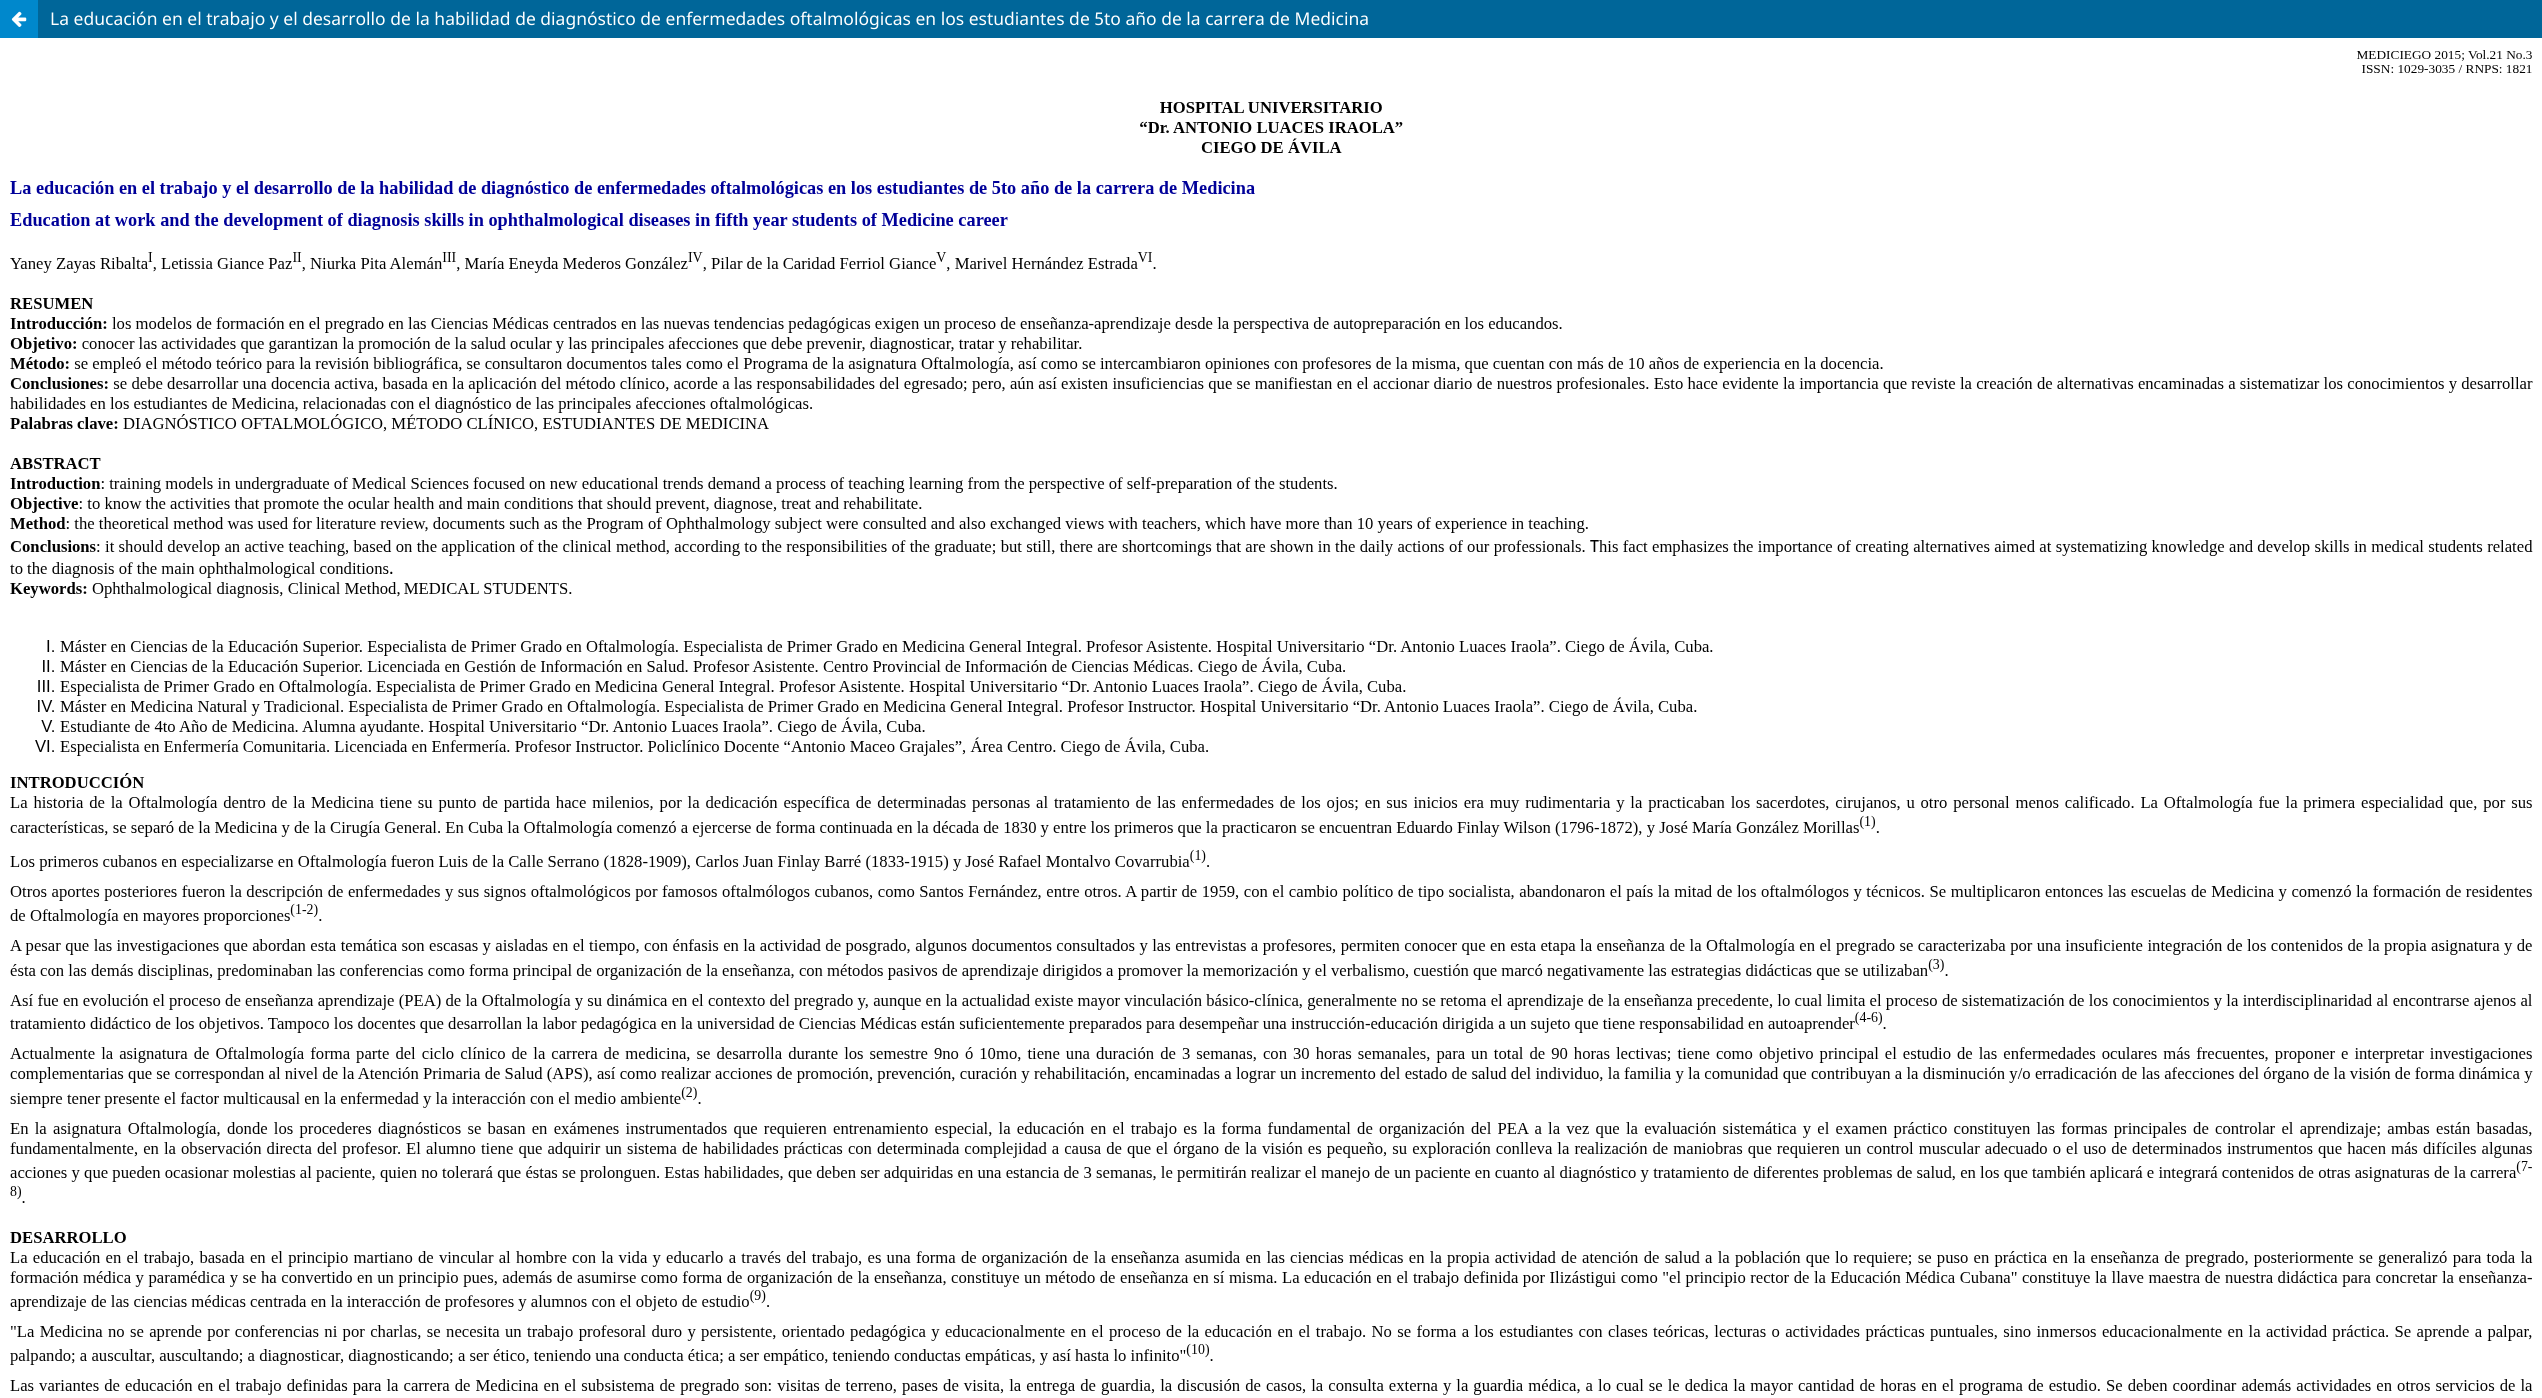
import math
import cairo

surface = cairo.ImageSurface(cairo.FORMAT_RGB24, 2542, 1398)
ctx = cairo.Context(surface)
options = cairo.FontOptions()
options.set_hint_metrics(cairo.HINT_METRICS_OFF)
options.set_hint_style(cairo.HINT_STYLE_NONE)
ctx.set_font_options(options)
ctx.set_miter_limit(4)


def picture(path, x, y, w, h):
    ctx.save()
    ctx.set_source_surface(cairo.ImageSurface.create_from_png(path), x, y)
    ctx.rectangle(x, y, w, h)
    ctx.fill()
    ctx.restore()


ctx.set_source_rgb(1, 1, 1)
ctx.paint()
ctx.set_source_rgb(0, 0.4, 0.6)
ctx.rectangle(38, 0, 2504, 38)
ctx.fill()
ctx.set_source_rgb(0, 0.533, 0.8)
ctx.rectangle(0, 0, 38, 38)
ctx.fill()
picture("img1.png", 11, 11, 16, 16)
ctx.select_font_face("Noto Sans")
ctx.set_font_size(17.5)
ctx.set_source_rgb(1, 1, 1)
ctx.move_to(50, 25)
ctx.show_text("La educación en el trabajo y el desarrollo de la habilidad de diagnóstico de enfermedades oftalmológicas en los estudiantes de 5to año de la carrera de Medicina")
picture("img2.png", 10, 50, 2523, 1345)
surface.write_to_png("page.png")
